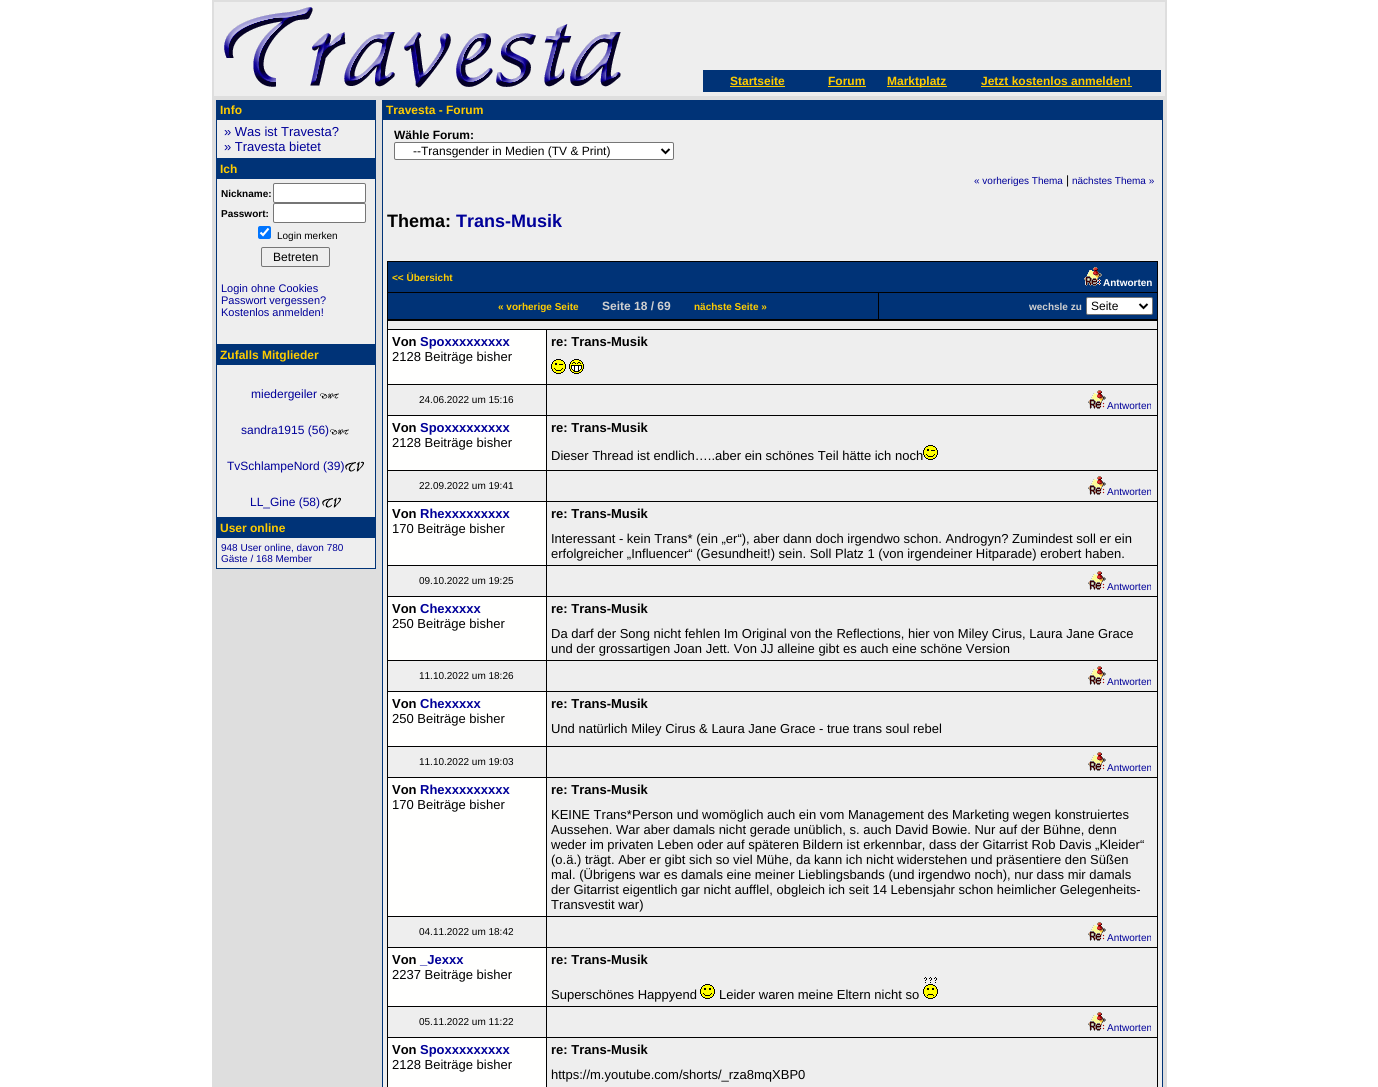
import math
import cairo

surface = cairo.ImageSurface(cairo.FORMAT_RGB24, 1378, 1087)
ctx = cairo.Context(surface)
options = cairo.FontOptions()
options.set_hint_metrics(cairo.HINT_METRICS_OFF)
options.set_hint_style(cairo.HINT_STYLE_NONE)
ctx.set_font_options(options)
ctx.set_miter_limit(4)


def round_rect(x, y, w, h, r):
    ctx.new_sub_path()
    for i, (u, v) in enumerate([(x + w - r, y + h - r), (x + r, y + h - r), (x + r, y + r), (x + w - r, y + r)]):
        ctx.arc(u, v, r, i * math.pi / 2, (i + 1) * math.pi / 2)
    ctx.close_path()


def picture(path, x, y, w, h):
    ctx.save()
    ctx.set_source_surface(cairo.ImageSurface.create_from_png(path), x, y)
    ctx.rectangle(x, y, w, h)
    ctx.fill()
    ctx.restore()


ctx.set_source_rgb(1, 1, 1)
ctx.paint()
ctx.set_source_rgb(0.871, 0.871, 0.871)
ctx.rectangle(212, 0, 955, 1087)
ctx.fill()
ctx.set_source_rgb(0.933, 0.933, 0.933)
ctx.rectangle(214, 2, 951, 94)
ctx.fill()
picture("img1.png", 224, 7, 397, 81)
ctx.set_source_rgb(0, 0.2, 0.467)
ctx.rectangle(703, 70, 458, 22)
ctx.fill()
ctx.select_font_face("Liberation Sans", cairo.FONT_SLANT_NORMAL, cairo.FONT_WEIGHT_BOLD)
ctx.set_font_size(12)
ctx.set_source_rgb(1, 0.8, 0)
ctx.move_to(730, 85)
ctx.show_text("Startseite")
ctx.rectangle(730, 86, 55, 1)
ctx.fill()
ctx.move_to(828, 85)
ctx.show_text("Forum")
ctx.rectangle(828, 86, 38, 1)
ctx.fill()
ctx.rectangle(887, 86, 60, 1)
ctx.fill()
ctx.move_to(887, 85)
ctx.show_text("Marktplatz")
ctx.move_to(981, 85)
ctx.show_text("Jetzt kostenlos anmelden!")
ctx.rectangle(981, 86, 151, 1)
ctx.fill()
ctx.set_source_rgb(0, 0.2, 0.467)
ctx.rectangle(216, 100, 160, 469)
ctx.fill()
ctx.set_source_rgb(1, 0.8, 0)
ctx.move_to(220, 114)
ctx.show_text("Info")
ctx.set_source_rgb(0.933, 0.933, 0.933)
ctx.rectangle(217, 120, 158, 38)
ctx.fill()
ctx.select_font_face("Liberation Sans")
ctx.set_font_size(13)
ctx.set_source_rgb(0, 0, 0.6)
ctx.move_to(224, 136)
ctx.show_text("» Was ist Travesta?")
ctx.move_to(224, 151)
ctx.show_text("» Travesta bietet")
ctx.select_font_face("Liberation Sans", cairo.FONT_SLANT_NORMAL, cairo.FONT_WEIGHT_BOLD)
ctx.set_font_size(12)
ctx.set_source_rgb(1, 0.8, 0)
ctx.move_to(220, 173)
ctx.show_text("Ich")
ctx.set_source_rgb(0.933, 0.933, 0.933)
ctx.rectangle(217, 179, 158, 165)
ctx.fill()
ctx.set_font_size(10)
ctx.set_source_rgb(0, 0, 0)
ctx.move_to(221, 197)
ctx.show_text("Nickname:")
ctx.set_source_rgb(1, 1, 1)
round_rect(273.5, 183.5, 92, 19, 1.5)
ctx.fill_preserve()
ctx.set_source_rgb(0.463, 0.463, 0.463)
ctx.set_line_width(1)
ctx.stroke()
ctx.set_source_rgb(0, 0, 0)
ctx.move_to(221, 217)
ctx.show_text("Passwort:")
ctx.set_source_rgb(1, 1, 1)
round_rect(273.5, 203.5, 92, 19, 1.5)
ctx.fill_preserve()
ctx.set_source_rgb(0.463, 0.463, 0.463)
ctx.stroke()
ctx.set_source_rgb(0, 0.459, 1)
round_rect(258, 226, 13, 13, 2)
ctx.fill()
ctx.new_path()
ctx.move_to(260.5, 232.5)
ctx.line_to(263, 235)
ctx.line_to(268.5, 228.5)
ctx.set_source_rgb(1, 1, 1)
ctx.set_line_width(2.1)
ctx.stroke()
ctx.select_font_face("Liberation Sans")
ctx.set_source_rgb(0, 0, 0)
ctx.move_to(277, 239)
ctx.show_text("Login merken")
round_rect(261.5, 247.5, 68, 19, 1.5)
ctx.set_source_rgb(0.463, 0.463, 0.463)
ctx.set_line_width(1)
ctx.stroke()
ctx.set_font_size(12)
ctx.set_source_rgb(0, 0, 0)
ctx.move_to(273, 261)
ctx.show_text("Betreten")
ctx.set_font_size(11)
ctx.set_source_rgb(0, 0, 0.6)
ctx.move_to(221, 292)
ctx.show_text("Login ohne Cookies")
ctx.move_to(221, 304)
ctx.show_text("Passwort vergessen?")
ctx.move_to(221, 316)
ctx.show_text("Kostenlos anmelden!")
ctx.select_font_face("Liberation Sans", cairo.FONT_SLANT_NORMAL, cairo.FONT_WEIGHT_BOLD)
ctx.set_font_size(12)
ctx.set_source_rgb(1, 0.8, 0)
ctx.move_to(220, 359)
ctx.show_text("Zufalls Mitglieder")
ctx.set_source_rgb(0.933, 0.933, 0.933)
ctx.rectangle(217, 365, 158, 152)
ctx.fill()
ctx.select_font_face("Liberation Sans")
ctx.set_source_rgb(0, 0, 0.6)
ctx.move_to(251, 398)
ctx.show_text("miedergeiler")
picture("img2.png", 320, 393, 19, 6)
ctx.move_to(241, 434)
ctx.show_text("sandra1915 (56)")
picture("img2.png", 330, 429, 19, 6)
ctx.move_to(227, 470)
ctx.show_text("TvSchlampeNord (39)")
picture("img3.png", 345, 461, 19, 11)
ctx.move_to(250, 506)
ctx.show_text("LL_Gine (58)")
picture("img3.png", 322, 497, 19, 11)
ctx.select_font_face("Liberation Sans", cairo.FONT_SLANT_NORMAL, cairo.FONT_WEIGHT_BOLD)
ctx.set_source_rgb(1, 0.8, 0)
ctx.move_to(220, 532)
ctx.show_text("User online")
ctx.set_source_rgb(0.933, 0.933, 0.933)
ctx.rectangle(217, 538, 158, 30)
ctx.fill()
ctx.select_font_face("Liberation Sans")
ctx.set_font_size(10)
ctx.set_source_rgb(0, 0, 0.6)
ctx.move_to(221, 551)
ctx.show_text("948 User online, davon 780")
ctx.move_to(221, 562)
ctx.show_text("Gäste / 168 Member")
ctx.set_source_rgb(0, 0.2, 0.467)
ctx.rectangle(382, 100, 781, 987)
ctx.fill()
ctx.select_font_face("Liberation Sans", cairo.FONT_SLANT_NORMAL, cairo.FONT_WEIGHT_BOLD)
ctx.set_font_size(12)
ctx.set_source_rgb(1, 0.8, 0)
ctx.move_to(386, 114)
ctx.show_text("Travesta - Forum")
ctx.set_source_rgb(0.933, 0.933, 0.933)
ctx.rectangle(383, 120, 779, 967)
ctx.fill()
ctx.set_source_rgb(0, 0, 0)
ctx.move_to(394, 139)
ctx.show_text("Wähle Forum:")
ctx.set_source_rgb(1, 1, 1)
round_rect(394.5, 142.5, 279, 17, 1.5)
ctx.fill_preserve()
ctx.set_source_rgb(0.463, 0.463, 0.463)
ctx.stroke()
ctx.new_path()
ctx.move_to(661.5, 149)
ctx.line_to(665.5, 153)
ctx.line_to(669.5, 149)
ctx.set_source_rgb(0, 0, 0)
ctx.set_line_width(2)
ctx.stroke()
ctx.select_font_face("Liberation Sans")
ctx.move_to(413, 155)
ctx.show_text("--Transgender in Medien (TV & Print)")
ctx.set_font_size(10)
ctx.set_source_rgb(0, 0, 0.6)
ctx.move_to(974, 184)
ctx.show_text("« vorheriges Thema")
ctx.set_font_size(12)
ctx.set_source_rgb(0, 0, 0)
ctx.move_to(1066, 184)
ctx.show_text("|")
ctx.set_font_size(10)
ctx.set_source_rgb(0, 0, 0.6)
ctx.move_to(1072, 184)
ctx.show_text("nächstes Thema »")
ctx.select_font_face("Liberation Sans", cairo.FONT_SLANT_NORMAL, cairo.FONT_WEIGHT_BOLD)
ctx.set_font_size(18)
ctx.set_source_rgb(0, 0, 0)
ctx.move_to(387, 227)
ctx.show_text("Thema:")
ctx.set_source_rgb(0, 0, 0.6)
ctx.move_to(456, 227)
ctx.show_text("Trans-Musik")
ctx.set_source_rgb(0, 0, 0)
ctx.rectangle(387, 261, 771, 826)
ctx.fill()
ctx.set_source_rgb(0, 0.2, 0.467)
ctx.rectangle(388, 262, 769, 30)
ctx.fill()
ctx.set_font_size(10)
ctx.set_source_rgb(1, 0.8, 0)
ctx.move_to(392, 281)
ctx.show_text("<< Übersicht")
picture("img4.png", 1084, 267, 18, 19)
ctx.set_source_rgb(1, 1, 1)
ctx.move_to(1103, 286)
ctx.show_text("Antworten")
ctx.set_source_rgb(0, 0.2, 0.467)
ctx.rectangle(388, 293, 490, 26)
ctx.fill()
ctx.set_source_rgb(1, 0.8, 0)
ctx.move_to(498, 310)
ctx.show_text("« vorherige Seite")
ctx.set_font_size(12)
ctx.set_source_rgb(0.816, 0.816, 0.816)
ctx.move_to(602, 310)
ctx.show_text("Seite 18 / 69")
ctx.set_font_size(10)
ctx.set_source_rgb(1, 0.8, 0)
ctx.move_to(694, 310)
ctx.show_text("nächste Seite »")
ctx.set_source_rgb(0, 0.2, 0.467)
ctx.rectangle(879, 293, 278, 26)
ctx.fill()
ctx.set_source_rgb(0.816, 0.816, 0.816)
ctx.move_to(1029, 310)
ctx.show_text("wechsle zu")
ctx.set_source_rgb(1, 1, 1)
round_rect(1086.5, 297.5, 66, 17, 1.5)
ctx.fill_preserve()
ctx.set_source_rgb(0.463, 0.463, 0.463)
ctx.set_line_width(1)
ctx.stroke()
ctx.new_path()
ctx.move_to(1139.5, 304)
ctx.line_to(1143.5, 308)
ctx.line_to(1147.5, 304)
ctx.set_source_rgb(0, 0, 0)
ctx.set_line_width(2)
ctx.stroke()
ctx.select_font_face("Liberation Sans")
ctx.set_font_size(12)
ctx.move_to(1091, 310)
ctx.show_text("Seite")
ctx.set_source_rgb(0.933, 0.933, 0.933)
ctx.rectangle(388, 321, 769, 8)
ctx.fill()
ctx.set_source_rgb(1, 1, 0.996)
ctx.rectangle(388, 330, 158, 54)
ctx.fill()
ctx.select_font_face("Liberation Sans", cairo.FONT_SLANT_NORMAL, cairo.FONT_WEIGHT_BOLD)
ctx.set_font_size(13)
ctx.set_source_rgb(0, 0, 0)
ctx.move_to(392, 346)
ctx.show_text("Von")
ctx.set_source_rgb(0, 0, 0.6)
ctx.move_to(420, 346)
ctx.show_text("Spoxxxxxxxxx")
ctx.select_font_face("Liberation Sans")
ctx.set_source_rgb(0, 0, 0)
ctx.move_to(392, 361)
ctx.show_text("2128 Beiträge bisher")
ctx.set_source_rgb(0.933, 0.933, 0.933)
ctx.rectangle(547, 330, 610, 54)
ctx.fill()
ctx.select_font_face("Liberation Sans", cairo.FONT_SLANT_NORMAL, cairo.FONT_WEIGHT_BOLD)
ctx.set_source_rgb(0, 0, 0)
ctx.move_to(551, 346)
ctx.show_text("re: Trans-Musik")
picture("img5.png", 551, 359, 15, 15)
picture("img6.png", 569, 359, 15, 15)
ctx.set_source_rgb(0.933, 0.933, 0.933)
ctx.rectangle(388, 385, 158, 30)
ctx.fill()
ctx.select_font_face("Liberation Sans")
ctx.set_font_size(10)
ctx.set_source_rgb(0, 0, 0)
ctx.move_to(419, 403)
ctx.show_text("24.06.2022 um 15:16")
ctx.set_source_rgb(0.933, 0.933, 0.933)
ctx.rectangle(547, 385, 610, 30)
ctx.fill()
picture("img7.png", 1088, 390, 18, 19)
ctx.set_source_rgb(0, 0, 0.6)
ctx.move_to(1107, 409)
ctx.show_text("Antworten")
ctx.set_source_rgb(1, 1, 0.996)
ctx.rectangle(388, 416, 158, 54)
ctx.fill()
ctx.select_font_face("Liberation Sans", cairo.FONT_SLANT_NORMAL, cairo.FONT_WEIGHT_BOLD)
ctx.set_font_size(13)
ctx.set_source_rgb(0, 0, 0)
ctx.move_to(392, 432)
ctx.show_text("Von")
ctx.set_source_rgb(0, 0, 0.6)
ctx.move_to(420, 432)
ctx.show_text("Spoxxxxxxxxx")
ctx.select_font_face("Liberation Sans")
ctx.set_source_rgb(0, 0, 0)
ctx.move_to(392, 447)
ctx.show_text("2128 Beiträge bisher")
ctx.set_source_rgb(0.933, 0.933, 0.933)
ctx.rectangle(547, 416, 610, 54)
ctx.fill()
ctx.select_font_face("Liberation Sans", cairo.FONT_SLANT_NORMAL, cairo.FONT_WEIGHT_BOLD)
ctx.set_source_rgb(0, 0, 0)
ctx.move_to(551, 432)
ctx.show_text("re: Trans-Musik")
ctx.select_font_face("Liberation Sans")
ctx.move_to(551, 460)
ctx.show_text("Dieser Thread ist endlich…..aber ein schönes Teil hätte ich noch")
picture("img5.png", 923, 445, 15, 15)
ctx.set_source_rgb(0.933, 0.933, 0.933)
ctx.rectangle(388, 471, 158, 30)
ctx.fill()
ctx.set_font_size(10)
ctx.set_source_rgb(0, 0, 0)
ctx.move_to(419, 489)
ctx.show_text("22.09.2022 um 19:41")
ctx.set_source_rgb(0.933, 0.933, 0.933)
ctx.rectangle(547, 471, 610, 30)
ctx.fill()
picture("img7.png", 1088, 476, 18, 19)
ctx.set_source_rgb(0, 0, 0.6)
ctx.move_to(1107, 495)
ctx.show_text("Antworten")
ctx.set_source_rgb(1, 1, 0.996)
ctx.rectangle(388, 502, 158, 63)
ctx.fill()
ctx.select_font_face("Liberation Sans", cairo.FONT_SLANT_NORMAL, cairo.FONT_WEIGHT_BOLD)
ctx.set_font_size(13)
ctx.set_source_rgb(0, 0, 0)
ctx.move_to(392, 518)
ctx.show_text("Von")
ctx.set_source_rgb(0, 0, 0.6)
ctx.move_to(420, 518)
ctx.show_text("Rhexxxxxxxxx")
ctx.select_font_face("Liberation Sans")
ctx.set_source_rgb(0, 0, 0)
ctx.move_to(392, 533)
ctx.show_text("170 Beiträge bisher")
ctx.set_source_rgb(0.933, 0.933, 0.933)
ctx.rectangle(547, 502, 610, 63)
ctx.fill()
ctx.select_font_face("Liberation Sans", cairo.FONT_SLANT_NORMAL, cairo.FONT_WEIGHT_BOLD)
ctx.set_source_rgb(0, 0, 0)
ctx.move_to(551, 518)
ctx.show_text("re: Trans-Musik")
ctx.select_font_face("Liberation Sans")
ctx.move_to(551, 543)
ctx.show_text("Interessant - kein Trans* (ein „er“), aber dann doch irgendwo schon. Androgyn? Zumindest soll er ein")
ctx.move_to(551, 558)
ctx.show_text("erfolgreicher „Influencer“ (Gesundheit!) sein. Soll Platz 1 (von irgendeiner Hitparade) erobert haben.")
ctx.set_source_rgb(0.933, 0.933, 0.933)
ctx.rectangle(388, 566, 158, 30)
ctx.fill()
ctx.set_font_size(10)
ctx.set_source_rgb(0, 0, 0)
ctx.move_to(419, 584)
ctx.show_text("09.10.2022 um 19:25")
ctx.set_source_rgb(0.933, 0.933, 0.933)
ctx.rectangle(547, 566, 610, 30)
ctx.fill()
picture("img7.png", 1088, 571, 18, 19)
ctx.set_source_rgb(0, 0, 0.6)
ctx.move_to(1107, 590)
ctx.show_text("Antworten")
ctx.set_source_rgb(1, 1, 0.996)
ctx.rectangle(388, 597, 158, 63)
ctx.fill()
ctx.select_font_face("Liberation Sans", cairo.FONT_SLANT_NORMAL, cairo.FONT_WEIGHT_BOLD)
ctx.set_font_size(13)
ctx.set_source_rgb(0, 0, 0)
ctx.move_to(392, 613)
ctx.show_text("Von")
ctx.set_source_rgb(0, 0, 0.6)
ctx.move_to(420, 613)
ctx.show_text("Chexxxxx")
ctx.select_font_face("Liberation Sans")
ctx.set_source_rgb(0, 0, 0)
ctx.move_to(392, 628)
ctx.show_text("250 Beiträge bisher")
ctx.set_source_rgb(0.933, 0.933, 0.933)
ctx.rectangle(547, 597, 610, 63)
ctx.fill()
ctx.select_font_face("Liberation Sans", cairo.FONT_SLANT_NORMAL, cairo.FONT_WEIGHT_BOLD)
ctx.set_source_rgb(0, 0, 0)
ctx.move_to(551, 613)
ctx.show_text("re: Trans-Musik")
ctx.select_font_face("Liberation Sans")
ctx.move_to(551, 638)
ctx.show_text("Da darf der Song nicht fehlen Im Original von the Reflections, hier von Miley Cirus, Laura Jane Grace")
ctx.move_to(551, 653)
ctx.show_text("und der grossartigen Joan Jett. Von JJ alleine gibt es auch eine schöne Version")
ctx.set_source_rgb(0.933, 0.933, 0.933)
ctx.rectangle(388, 661, 158, 30)
ctx.fill()
ctx.set_font_size(10)
ctx.set_source_rgb(0, 0, 0)
ctx.move_to(419, 679)
ctx.show_text("11.10.2022 um 18:26")
ctx.set_source_rgb(0.933, 0.933, 0.933)
ctx.rectangle(547, 661, 610, 30)
ctx.fill()
picture("img7.png", 1088, 666, 18, 19)
ctx.set_source_rgb(0, 0, 0.6)
ctx.move_to(1107, 685)
ctx.show_text("Antworten")
ctx.set_source_rgb(1, 1, 0.996)
ctx.rectangle(388, 692, 158, 54)
ctx.fill()
ctx.select_font_face("Liberation Sans", cairo.FONT_SLANT_NORMAL, cairo.FONT_WEIGHT_BOLD)
ctx.set_font_size(13)
ctx.set_source_rgb(0, 0, 0)
ctx.move_to(392, 708)
ctx.show_text("Von")
ctx.set_source_rgb(0, 0, 0.6)
ctx.move_to(420, 708)
ctx.show_text("Chexxxxx")
ctx.select_font_face("Liberation Sans")
ctx.set_source_rgb(0, 0, 0)
ctx.move_to(392, 723)
ctx.show_text("250 Beiträge bisher")
ctx.set_source_rgb(0.933, 0.933, 0.933)
ctx.rectangle(547, 692, 610, 54)
ctx.fill()
ctx.select_font_face("Liberation Sans", cairo.FONT_SLANT_NORMAL, cairo.FONT_WEIGHT_BOLD)
ctx.set_source_rgb(0, 0, 0)
ctx.move_to(551, 708)
ctx.show_text("re: Trans-Musik")
ctx.select_font_face("Liberation Sans")
ctx.move_to(551, 733)
ctx.show_text("Und natürlich Miley Cirus & Laura Jane Grace - true trans soul rebel")
ctx.set_source_rgb(0.933, 0.933, 0.933)
ctx.rectangle(388, 747, 158, 30)
ctx.fill()
ctx.set_font_size(10)
ctx.set_source_rgb(0, 0, 0)
ctx.move_to(419, 765)
ctx.show_text("11.10.2022 um 19:03")
ctx.set_source_rgb(0.933, 0.933, 0.933)
ctx.rectangle(547, 747, 610, 30)
ctx.fill()
picture("img7.png", 1088, 752, 18, 19)
ctx.set_source_rgb(0, 0, 0.6)
ctx.move_to(1107, 771)
ctx.show_text("Antworten")
ctx.set_source_rgb(1, 1, 0.996)
ctx.rectangle(388, 778, 158, 138)
ctx.fill()
ctx.select_font_face("Liberation Sans", cairo.FONT_SLANT_NORMAL, cairo.FONT_WEIGHT_BOLD)
ctx.set_font_size(13)
ctx.set_source_rgb(0, 0, 0)
ctx.move_to(392, 794)
ctx.show_text("Von")
ctx.set_source_rgb(0, 0, 0.6)
ctx.move_to(420, 794)
ctx.show_text("Rhexxxxxxxxx")
ctx.select_font_face("Liberation Sans")
ctx.set_source_rgb(0, 0, 0)
ctx.move_to(392, 809)
ctx.show_text("170 Beiträge bisher")
ctx.set_source_rgb(0.933, 0.933, 0.933)
ctx.rectangle(547, 778, 610, 138)
ctx.fill()
ctx.select_font_face("Liberation Sans", cairo.FONT_SLANT_NORMAL, cairo.FONT_WEIGHT_BOLD)
ctx.set_source_rgb(0, 0, 0)
ctx.move_to(551, 794)
ctx.show_text("re: Trans-Musik")
ctx.select_font_face("Liberation Sans")
ctx.move_to(551, 819)
ctx.show_text("KEINE Trans*Person und womöglich auch ein vom Management des Marketing wegen konstruiertes")
ctx.move_to(551, 834)
ctx.show_text("Aussehen. War aber damals nicht gerade unüblich, s. auch David Bowie. Nur auf der Bühne, denn")
ctx.move_to(551, 849)
ctx.show_text("weder im privaten Leben oder auf späteren Bildern ist erkennbar, dass der Gitarrist Rob Davis „Kleider“")
ctx.move_to(551, 864)
ctx.show_text("(o.ä.) trägt. Aber er gibt sich so viel Mühe, da kann ich nicht widerstehen und präsentiere den Süßen")
ctx.move_to(551, 879)
ctx.show_text("mal. (Übrigens war es damals eine meiner Lieblingsbands (und irgendwo noch), nur dass mir damals")
ctx.move_to(551, 894)
ctx.show_text("der Gitarrist eigentlich gar nicht aufflel, obgleich ich seit 14 Lebensjahr schon heimlicher Gelegenheits-")
ctx.move_to(551, 909)
ctx.show_text("Transvestit war)")
ctx.set_source_rgb(0.933, 0.933, 0.933)
ctx.rectangle(388, 917, 158, 30)
ctx.fill()
ctx.set_font_size(10)
ctx.set_source_rgb(0, 0, 0)
ctx.move_to(419, 935)
ctx.show_text("04.11.2022 um 18:42")
ctx.set_source_rgb(0.933, 0.933, 0.933)
ctx.rectangle(547, 917, 610, 30)
ctx.fill()
picture("img7.png", 1088, 922, 18, 19)
ctx.set_source_rgb(0, 0, 0.6)
ctx.move_to(1107, 941)
ctx.show_text("Antworten")
ctx.set_source_rgb(1, 1, 0.996)
ctx.rectangle(388, 948, 158, 58)
ctx.fill()
ctx.select_font_face("Liberation Sans", cairo.FONT_SLANT_NORMAL, cairo.FONT_WEIGHT_BOLD)
ctx.set_font_size(13)
ctx.set_source_rgb(0, 0, 0)
ctx.move_to(392, 964)
ctx.show_text("Von")
ctx.set_source_rgb(0, 0, 0.6)
ctx.move_to(420, 964)
ctx.show_text("_Jexxx")
ctx.select_font_face("Liberation Sans")
ctx.set_source_rgb(0, 0, 0)
ctx.move_to(392, 979)
ctx.show_text("2237 Beiträge bisher")
ctx.set_source_rgb(0.933, 0.933, 0.933)
ctx.rectangle(547, 948, 610, 58)
ctx.fill()
ctx.select_font_face("Liberation Sans", cairo.FONT_SLANT_NORMAL, cairo.FONT_WEIGHT_BOLD)
ctx.set_source_rgb(0, 0, 0)
ctx.move_to(551, 964)
ctx.show_text("re: Trans-Musik")
ctx.select_font_face("Liberation Sans")
ctx.move_to(551, 999)
ctx.show_text("Superschönes Happyend")
picture("img8.png", 700, 984, 15, 15)
ctx.move_to(719, 999)
ctx.show_text("Leider waren meine Eltern nicht so")
picture("img9.png", 923, 977, 15, 22)
ctx.set_source_rgb(0.933, 0.933, 0.933)
ctx.rectangle(388, 1007, 158, 30)
ctx.fill()
ctx.set_font_size(10)
ctx.set_source_rgb(0, 0, 0)
ctx.move_to(419, 1025)
ctx.show_text("05.11.2022 um 11:22")
ctx.set_source_rgb(0.933, 0.933, 0.933)
ctx.rectangle(547, 1007, 610, 30)
ctx.fill()
picture("img7.png", 1088, 1012, 18, 19)
ctx.set_source_rgb(0, 0, 0.6)
ctx.move_to(1107, 1031)
ctx.show_text("Antworten")
ctx.set_source_rgb(1, 1, 0.996)
ctx.rectangle(388, 1038, 158, 49)
ctx.fill()
ctx.select_font_face("Liberation Sans", cairo.FONT_SLANT_NORMAL, cairo.FONT_WEIGHT_BOLD)
ctx.set_font_size(13)
ctx.set_source_rgb(0, 0, 0)
ctx.move_to(392, 1054)
ctx.show_text("Von")
ctx.set_source_rgb(0, 0, 0.6)
ctx.move_to(420, 1054)
ctx.show_text("Spoxxxxxxxxx")
ctx.select_font_face("Liberation Sans")
ctx.set_source_rgb(0, 0, 0)
ctx.move_to(392, 1069)
ctx.show_text("2128 Beiträge bisher")
ctx.set_source_rgb(0.933, 0.933, 0.933)
ctx.rectangle(547, 1038, 610, 49)
ctx.fill()
ctx.select_font_face("Liberation Sans", cairo.FONT_SLANT_NORMAL, cairo.FONT_WEIGHT_BOLD)
ctx.set_source_rgb(0, 0, 0)
ctx.move_to(551, 1054)
ctx.show_text("re: Trans-Musik")
ctx.select_font_face("Liberation Sans")
ctx.move_to(551, 1079)
ctx.show_text("https://m.youtube.com/shorts/_rza8mqXBP0")
surface.write_to_png("page.png")
